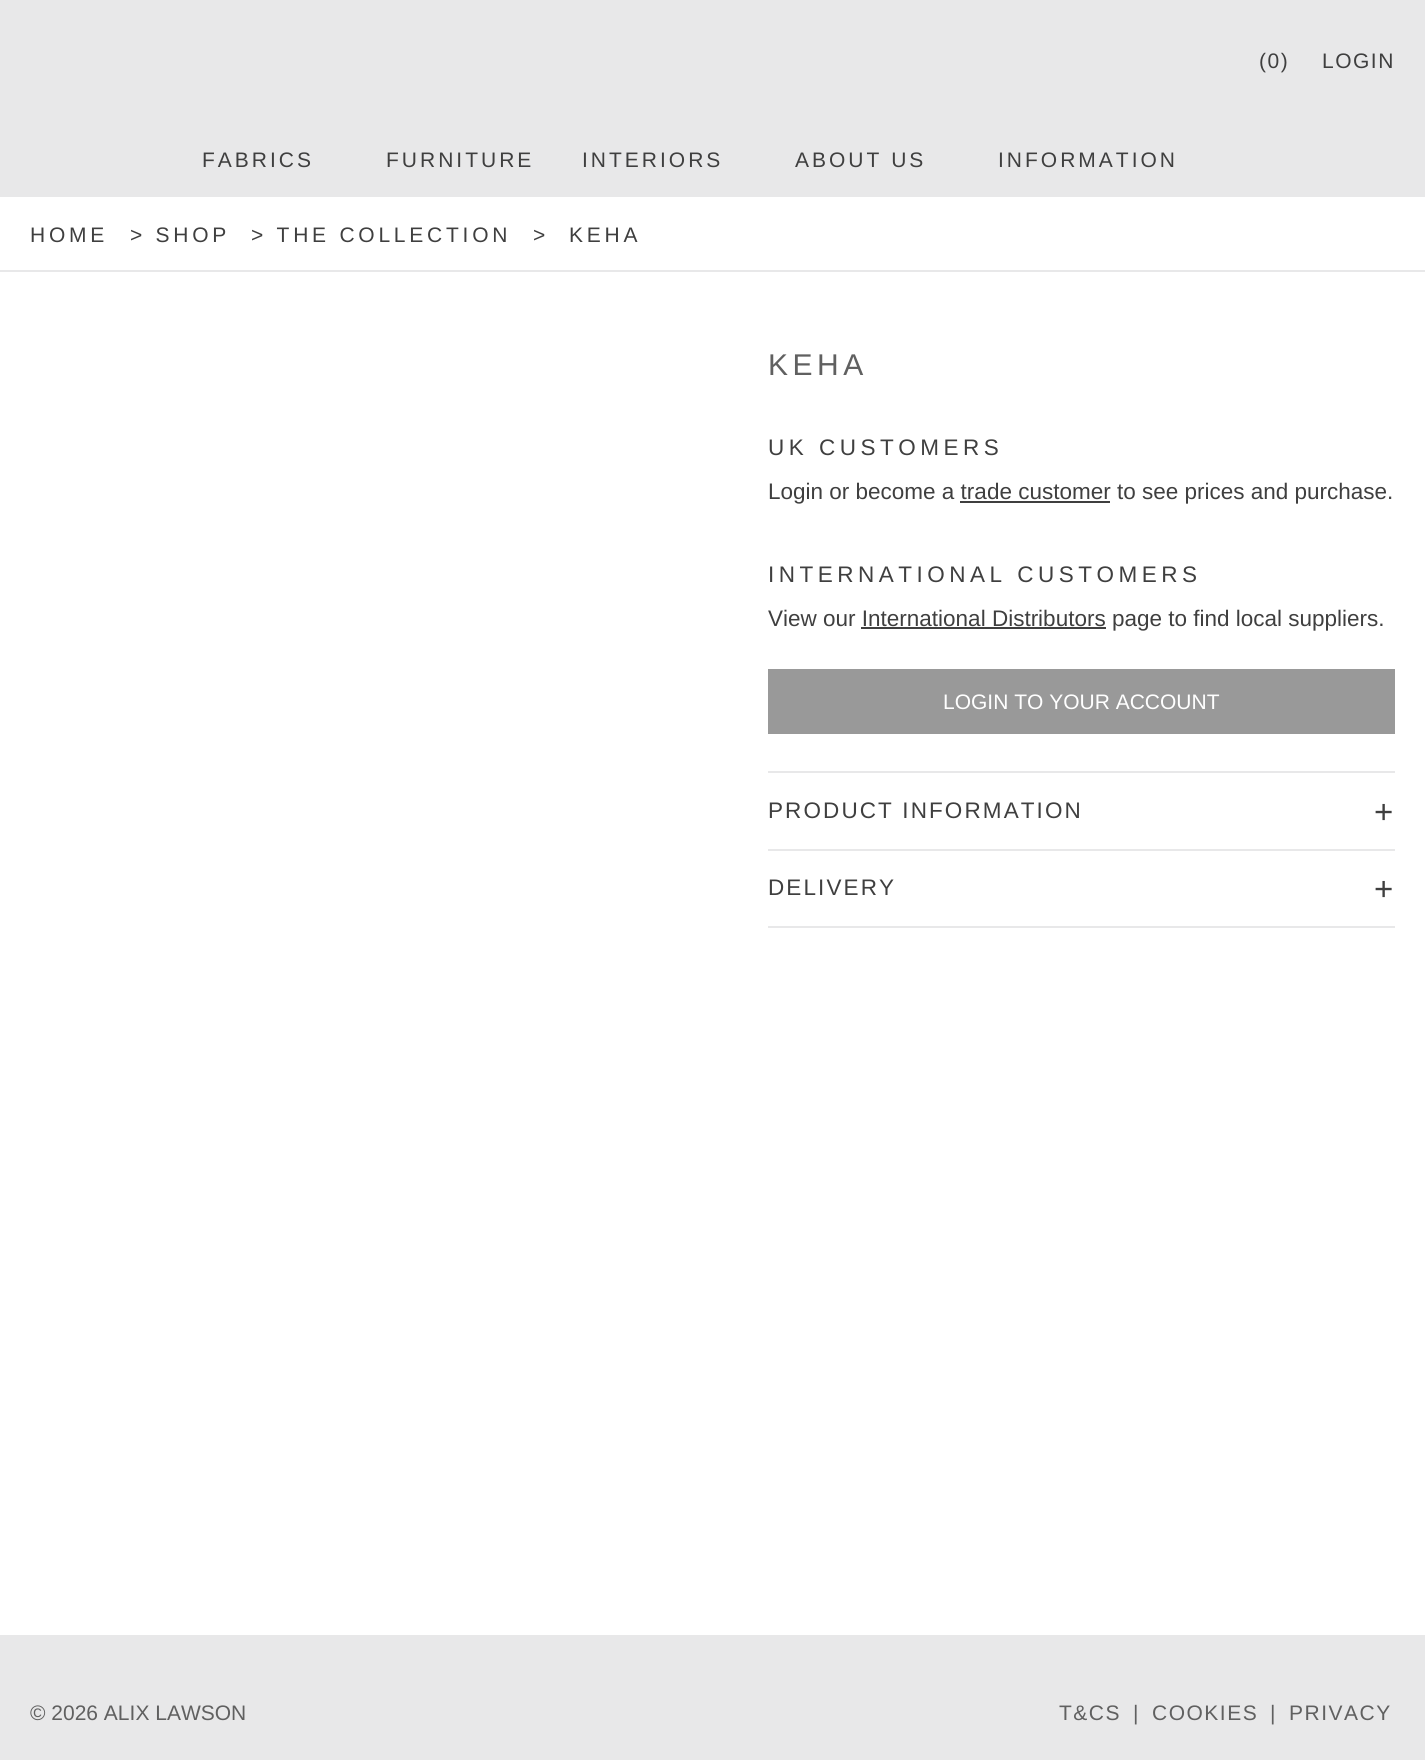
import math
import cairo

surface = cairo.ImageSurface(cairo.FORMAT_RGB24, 1425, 1760)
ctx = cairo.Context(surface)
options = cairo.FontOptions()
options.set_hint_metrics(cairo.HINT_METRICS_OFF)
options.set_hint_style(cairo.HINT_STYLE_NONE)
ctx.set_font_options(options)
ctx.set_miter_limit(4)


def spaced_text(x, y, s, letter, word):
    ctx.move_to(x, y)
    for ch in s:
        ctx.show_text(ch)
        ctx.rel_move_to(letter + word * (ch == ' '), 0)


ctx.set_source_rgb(1, 1, 1)
ctx.paint()
ctx.set_source_rgb(0.91, 0.91, 0.914)
ctx.rectangle(0, 0, 1425, 197)
ctx.fill()
ctx.select_font_face("Liberation Sans")
ctx.set_font_size(21)
ctx.set_source_rgb(0.247, 0.247, 0.247)
spaced_text(1259, 68, "(0)", 1.5, 0)
spaced_text(1322, 68, "LOGIN", 1.5, 0)
spaced_text(202, 167, "FABRICS", 3, 0)
spaced_text(386, 167, "FURNITURE", 3, 0)
spaced_text(582, 167, "INTERIORS", 3, 0)
spaced_text(795, 167, "ABOUT US", 3, 0)
spaced_text(998, 167, "INFORMATION", 3, 0)
ctx.set_source_rgb(0.91, 0.91, 0.914)
ctx.rectangle(0, 270, 1425, 2)
ctx.fill()
ctx.set_source_rgb(0.247, 0.247, 0.247)
spaced_text(30, 242, "HOME", 3.75, 0)
spaced_text(130, 242, "> SHOP", 3.75, 0)
spaced_text(251, 242, "> THE COLLECTION", 3.75, 0)
spaced_text(533, 242, ">", 3.75, 0)
spaced_text(569, 242, "KEHA", 3.75, 0)
ctx.set_font_size(30)
ctx.set_source_rgb(0.376, 0.376, 0.376)
spaced_text(768, 375, "KEHA", 4.5, 0)
ctx.set_font_size(22.5)
ctx.set_source_rgb(0.247, 0.247, 0.247)
spaced_text(768, 455, "UK CUSTOMERS", 4.5, 0)
ctx.move_to(768, 499)
ctx.show_text("Login or become a trade customer to see prices and purchase.")
ctx.rectangle(960, 501, 150, 2)
ctx.fill()
spaced_text(768, 582, "INTERNATIONAL CUSTOMERS", 4.5, 0)
ctx.move_to(768, 626)
ctx.show_text("View our International Distributors page to find local suppliers.")
ctx.rectangle(861, 627, 245, 2)
ctx.fill()
ctx.set_source_rgb(0.6, 0.6, 0.6)
ctx.rectangle(768, 669, 627, 65)
ctx.fill()
ctx.set_font_size(21)
ctx.set_source_rgb(1, 1, 1)
ctx.move_to(943, 709)
ctx.show_text("LOGIN TO YOUR ACCOUNT")
ctx.set_source_rgb(0.91, 0.91, 0.914)
ctx.rectangle(768, 926, 627, 2)
ctx.fill()
ctx.rectangle(768, 771, 627, 2)
ctx.fill()
ctx.set_font_size(22.5)
ctx.set_source_rgb(0.247, 0.247, 0.247)
spaced_text(768, 818, "PRODUCT INFORMATION", 2.1, 0)
ctx.set_font_size(33)
spaced_text(1374, 823, "+", 2.1, 0)
ctx.set_source_rgb(0.91, 0.91, 0.914)
ctx.rectangle(768, 849, 627, 2)
ctx.fill()
ctx.set_font_size(22.5)
ctx.set_source_rgb(0.247, 0.247, 0.247)
spaced_text(768, 895, "DELIVERY", 2.1, 0)
ctx.set_font_size(33)
spaced_text(1374, 900, "+", 2.1, 0)
ctx.set_source_rgb(0.91, 0.91, 0.914)
ctx.rectangle(0, 1635, 1425, 125)
ctx.fill()
ctx.set_font_size(21)
ctx.set_source_rgb(0.376, 0.376, 0.376)
ctx.move_to(30, 1720)
ctx.show_text("© 2026 ALIX LAWSON")
spaced_text(1059, 1720, "T&CS", 1.5, 0)
spaced_text(1133, 1720, "|", 1.5, 0)
spaced_text(1152, 1720, "COOKIES", 1.5, 0)
spaced_text(1270, 1720, "|", 1.5, 0)
spaced_text(1289, 1720, "PRIVACY", 1.5, 0)
surface.write_to_png("page.png")
